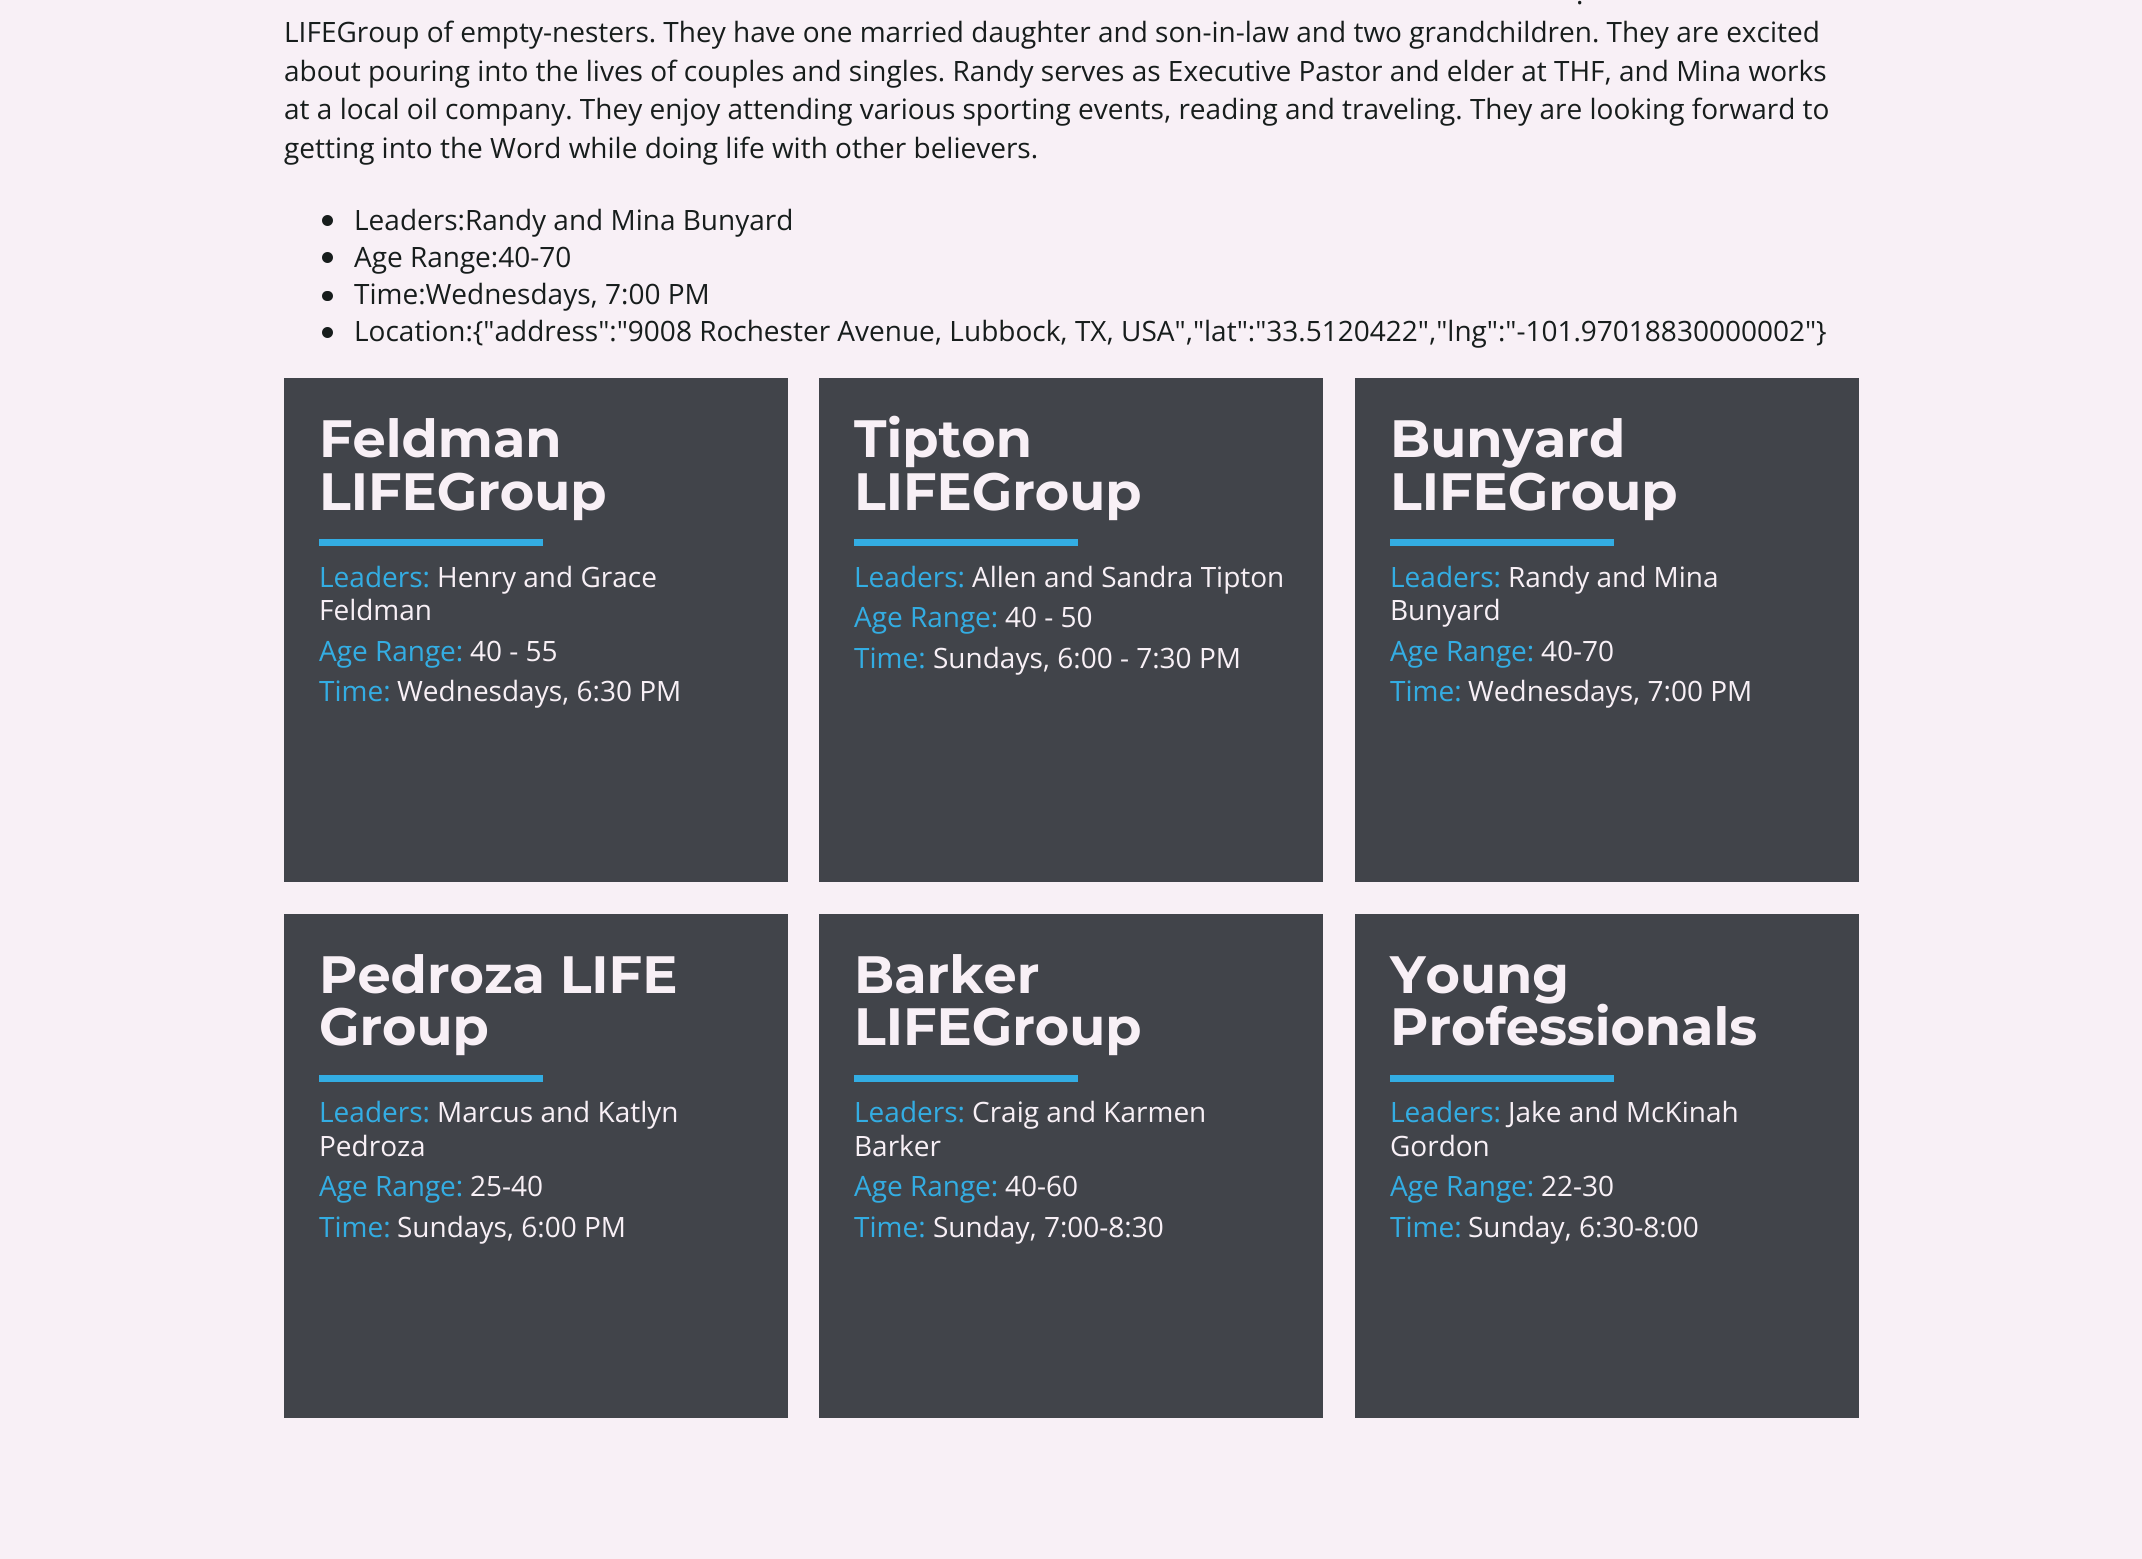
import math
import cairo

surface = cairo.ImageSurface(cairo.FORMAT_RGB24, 2142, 1559)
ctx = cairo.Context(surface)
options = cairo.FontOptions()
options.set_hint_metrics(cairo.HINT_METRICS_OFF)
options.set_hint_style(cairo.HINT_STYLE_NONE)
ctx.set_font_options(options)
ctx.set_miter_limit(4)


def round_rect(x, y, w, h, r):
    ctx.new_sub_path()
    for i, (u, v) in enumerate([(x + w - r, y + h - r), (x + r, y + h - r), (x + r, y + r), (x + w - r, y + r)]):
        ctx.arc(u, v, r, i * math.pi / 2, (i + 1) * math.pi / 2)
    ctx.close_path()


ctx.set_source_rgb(0.969, 0.941, 0.961)
ctx.paint()
ctx.select_font_face("Open Sans")
ctx.set_font_size(28)
ctx.set_source_rgb(0.09, 0.114, 0.11)
ctx.move_to(1576, 4)
ctx.show_text(".")
ctx.move_to(284, 42)
ctx.show_text("LIFEGroup of empty-nesters. They have one married daughter and son-in-law and two grandchildren. They are excited")
ctx.move_to(284, 81)
ctx.show_text("about pouring into the lives of couples and singles. Randy serves as Executive Pastor and elder at THF, and Mina works")
ctx.move_to(284, 119)
ctx.show_text("at a local oil company. They enjoy attending various sporting events, reading and traveling. They are looking forward to")
ctx.move_to(284, 158)
ctx.show_text("getting into the Word while doing life with other believers.")
ctx.new_path()
ctx.arc(327.5, 220.5, 5.5, 0, 2 * math.pi)
ctx.fill()
ctx.move_to(354, 230)
ctx.show_text("Leaders:Randy and Mina Bunyard")
ctx.new_path()
ctx.arc(327.5, 257.5, 5.5, 0, 2 * math.pi)
ctx.fill()
ctx.move_to(354, 267)
ctx.show_text("Age Range:40-70")
round_rect(322, 291, 11, 10, 5)
ctx.fill()
ctx.move_to(354, 304)
ctx.show_text("Time:Wednesdays, 7:00 PM")
ctx.new_path()
ctx.arc(327.5, 332.5, 5.5, 0, 2 * math.pi)
ctx.fill()
ctx.move_to(354, 341)
ctx.show_text("Location:{\"address\":\"9008 Rochester Avenue, Lubbock, TX, USA\",\"lat\":\"33.5120422\",\"lng\":\"-101.97018830000002\"}")
ctx.set_source_rgb(0.255, 0.267, 0.29)
ctx.rectangle(284, 378, 504, 504)
ctx.fill()
ctx.select_font_face("Montserrat", cairo.FONT_SLANT_NORMAL, cairo.FONT_WEIGHT_BOLD)
ctx.set_font_size(52.5)
ctx.set_source_rgb(0.969, 0.941, 0.961)
ctx.move_to(319, 457)
ctx.show_text("Feldman")
ctx.move_to(319, 510)
ctx.show_text("LIFEGroup")
ctx.set_source_rgb(0.2, 0.678, 0.89)
ctx.rectangle(319, 539, 224, 7)
ctx.fill()
ctx.select_font_face("Open Sans")
ctx.set_font_size(28)
ctx.move_to(319, 587)
ctx.show_text("Leaders:")
ctx.set_source_rgb(0.969, 0.941, 0.961)
ctx.move_to(437, 587)
ctx.show_text("Henry and Grace")
ctx.move_to(319, 620)
ctx.show_text("Feldman")
ctx.set_source_rgb(0.2, 0.678, 0.89)
ctx.move_to(319, 661)
ctx.show_text("Age Range:")
ctx.set_source_rgb(0.969, 0.941, 0.961)
ctx.move_to(470, 661)
ctx.show_text("40 - 55")
ctx.set_source_rgb(0.2, 0.678, 0.89)
ctx.move_to(319, 701)
ctx.show_text("Time:")
ctx.set_source_rgb(0.969, 0.941, 0.961)
ctx.move_to(397, 701)
ctx.show_text("Wednesdays, 6:30 PM")
ctx.set_source_rgb(0.255, 0.267, 0.29)
ctx.rectangle(819, 378, 504, 504)
ctx.fill()
ctx.select_font_face("Montserrat", cairo.FONT_SLANT_NORMAL, cairo.FONT_WEIGHT_BOLD)
ctx.set_font_size(52.5)
ctx.set_source_rgb(0.969, 0.941, 0.961)
ctx.move_to(854, 457)
ctx.show_text("Tipton")
ctx.move_to(854, 510)
ctx.show_text("LIFEGroup")
ctx.set_source_rgb(0.2, 0.678, 0.89)
ctx.rectangle(854, 539, 224, 7)
ctx.fill()
ctx.select_font_face("Open Sans")
ctx.set_font_size(28)
ctx.move_to(854, 587)
ctx.show_text("Leaders:")
ctx.set_source_rgb(0.969, 0.941, 0.961)
ctx.move_to(972, 587)
ctx.show_text("Allen and Sandra Tipton")
ctx.set_source_rgb(0.2, 0.678, 0.89)
ctx.move_to(854, 627)
ctx.show_text("Age Range:")
ctx.set_source_rgb(0.969, 0.941, 0.961)
ctx.move_to(1005, 627)
ctx.show_text("40 - 50")
ctx.set_source_rgb(0.2, 0.678, 0.89)
ctx.move_to(854, 668)
ctx.show_text("Time:")
ctx.set_source_rgb(0.969, 0.941, 0.961)
ctx.move_to(933, 668)
ctx.show_text("Sundays, 6:00 - 7:30 PM")
ctx.set_source_rgb(0.255, 0.267, 0.29)
ctx.rectangle(1355, 378, 504, 504)
ctx.fill()
ctx.select_font_face("Montserrat", cairo.FONT_SLANT_NORMAL, cairo.FONT_WEIGHT_BOLD)
ctx.set_font_size(52.5)
ctx.set_source_rgb(0.969, 0.941, 0.961)
ctx.move_to(1390, 457)
ctx.show_text("Bunyard")
ctx.move_to(1390, 510)
ctx.show_text("LIFEGroup")
ctx.set_source_rgb(0.2, 0.678, 0.89)
ctx.rectangle(1390, 539, 224, 7)
ctx.fill()
ctx.select_font_face("Open Sans")
ctx.set_font_size(28)
ctx.move_to(1390, 587)
ctx.show_text("Leaders:")
ctx.set_source_rgb(0.969, 0.941, 0.961)
ctx.move_to(1508, 587)
ctx.show_text("Randy and Mina")
ctx.move_to(1390, 620)
ctx.show_text("Bunyard")
ctx.set_source_rgb(0.2, 0.678, 0.89)
ctx.move_to(1390, 661)
ctx.show_text("Age Range:")
ctx.set_source_rgb(0.969, 0.941, 0.961)
ctx.move_to(1541, 661)
ctx.show_text("40-70")
ctx.set_source_rgb(0.2, 0.678, 0.89)
ctx.move_to(1390, 701)
ctx.show_text("Time:")
ctx.set_source_rgb(0.969, 0.941, 0.961)
ctx.move_to(1468, 701)
ctx.show_text("Wednesdays, 7:00 PM")
ctx.set_source_rgb(0.255, 0.267, 0.29)
ctx.rectangle(284, 914, 504, 504)
ctx.fill()
ctx.select_font_face("Montserrat", cairo.FONT_SLANT_NORMAL, cairo.FONT_WEIGHT_BOLD)
ctx.set_font_size(52.5)
ctx.set_source_rgb(0.969, 0.941, 0.961)
ctx.move_to(319, 993)
ctx.show_text("Pedroza LIFE")
ctx.move_to(319, 1045)
ctx.show_text("Group")
ctx.set_source_rgb(0.2, 0.678, 0.89)
ctx.rectangle(319, 1075, 224, 7)
ctx.fill()
ctx.select_font_face("Open Sans")
ctx.set_font_size(28)
ctx.move_to(319, 1122)
ctx.show_text("Leaders:")
ctx.set_source_rgb(0.969, 0.941, 0.961)
ctx.move_to(437, 1122)
ctx.show_text("Marcus and Katlyn")
ctx.move_to(319, 1156)
ctx.show_text("Pedroza")
ctx.set_source_rgb(0.2, 0.678, 0.89)
ctx.move_to(319, 1196)
ctx.show_text("Age Range:")
ctx.set_source_rgb(0.969, 0.941, 0.961)
ctx.move_to(470, 1196)
ctx.show_text("25-40")
ctx.set_source_rgb(0.2, 0.678, 0.89)
ctx.move_to(319, 1237)
ctx.show_text("Time:")
ctx.set_source_rgb(0.969, 0.941, 0.961)
ctx.move_to(397, 1237)
ctx.show_text("Sundays, 6:00 PM")
ctx.set_source_rgb(0.255, 0.267, 0.29)
ctx.rectangle(819, 914, 504, 504)
ctx.fill()
ctx.select_font_face("Montserrat", cairo.FONT_SLANT_NORMAL, cairo.FONT_WEIGHT_BOLD)
ctx.set_font_size(52.5)
ctx.set_source_rgb(0.969, 0.941, 0.961)
ctx.move_to(854, 993)
ctx.show_text("Barker")
ctx.move_to(854, 1045)
ctx.show_text("LIFEGroup")
ctx.set_source_rgb(0.2, 0.678, 0.89)
ctx.rectangle(854, 1075, 224, 7)
ctx.fill()
ctx.select_font_face("Open Sans")
ctx.set_font_size(28)
ctx.move_to(854, 1122)
ctx.show_text("Leaders:")
ctx.set_source_rgb(0.969, 0.941, 0.961)
ctx.move_to(972, 1122)
ctx.show_text("Craig and Karmen")
ctx.move_to(854, 1156)
ctx.show_text("Barker")
ctx.set_source_rgb(0.2, 0.678, 0.89)
ctx.move_to(854, 1196)
ctx.show_text("Age Range:")
ctx.set_source_rgb(0.969, 0.941, 0.961)
ctx.move_to(1005, 1196)
ctx.show_text("40-60")
ctx.set_source_rgb(0.2, 0.678, 0.89)
ctx.move_to(854, 1237)
ctx.show_text("Time:")
ctx.set_source_rgb(0.969, 0.941, 0.961)
ctx.move_to(933, 1237)
ctx.show_text("Sunday, 7:00-8:30")
ctx.set_source_rgb(0.255, 0.267, 0.29)
ctx.rectangle(1355, 914, 504, 504)
ctx.fill()
ctx.select_font_face("Montserrat", cairo.FONT_SLANT_NORMAL, cairo.FONT_WEIGHT_BOLD)
ctx.set_font_size(52.5)
ctx.set_source_rgb(0.969, 0.941, 0.961)
ctx.move_to(1390, 993)
ctx.show_text("Young")
ctx.move_to(1390, 1045)
ctx.show_text("Professionals")
ctx.set_source_rgb(0.2, 0.678, 0.89)
ctx.rectangle(1390, 1075, 224, 7)
ctx.fill()
ctx.select_font_face("Open Sans")
ctx.set_font_size(28)
ctx.move_to(1390, 1122)
ctx.show_text("Leaders:")
ctx.set_source_rgb(0.969, 0.941, 0.961)
ctx.move_to(1508, 1122)
ctx.show_text("Jake and McKinah")
ctx.move_to(1390, 1156)
ctx.show_text("Gordon")
ctx.set_source_rgb(0.2, 0.678, 0.89)
ctx.move_to(1390, 1196)
ctx.show_text("Age Range:")
ctx.set_source_rgb(0.969, 0.941, 0.961)
ctx.move_to(1541, 1196)
ctx.show_text("22-30")
ctx.set_source_rgb(0.2, 0.678, 0.89)
ctx.move_to(1390, 1237)
ctx.show_text("Time:")
ctx.set_source_rgb(0.969, 0.941, 0.961)
ctx.move_to(1468, 1237)
ctx.show_text("Sunday, 6:30-8:00")
surface.write_to_png("page.png")
